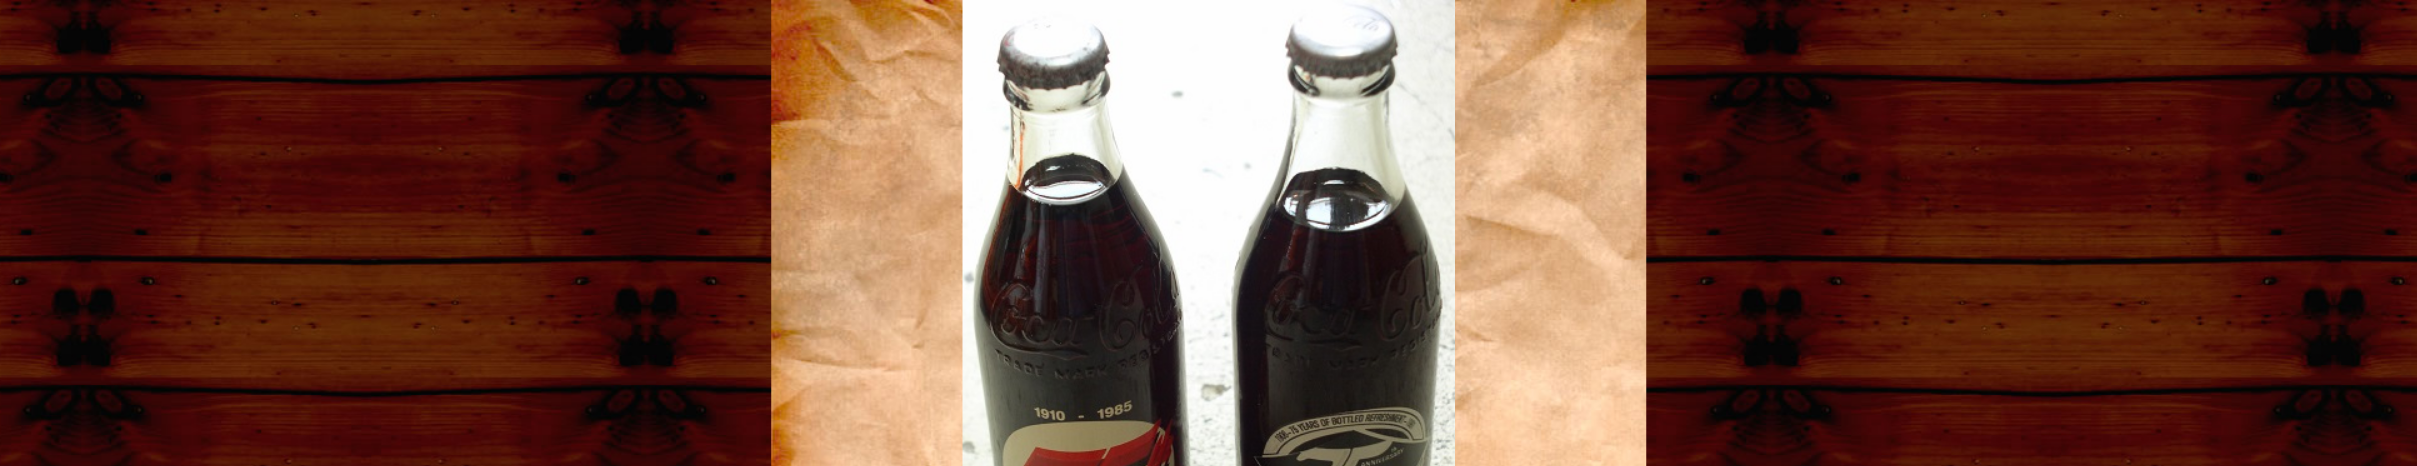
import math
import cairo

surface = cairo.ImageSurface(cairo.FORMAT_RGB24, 2417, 466)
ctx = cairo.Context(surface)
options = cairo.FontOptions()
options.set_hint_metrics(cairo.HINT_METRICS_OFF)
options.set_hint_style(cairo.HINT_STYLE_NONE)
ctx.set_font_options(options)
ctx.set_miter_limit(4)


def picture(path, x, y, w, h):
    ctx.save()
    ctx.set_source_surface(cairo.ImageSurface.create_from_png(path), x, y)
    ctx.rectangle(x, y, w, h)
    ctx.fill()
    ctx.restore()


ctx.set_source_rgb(1, 1, 1)
ctx.paint()
picture("img1.png", 0, 0, 2417, 466)
picture("img2.png", 771, 0, 876, 466)
picture("img3.png", 962, 0, 493, 466)
surface.write_to_png("page.png")
